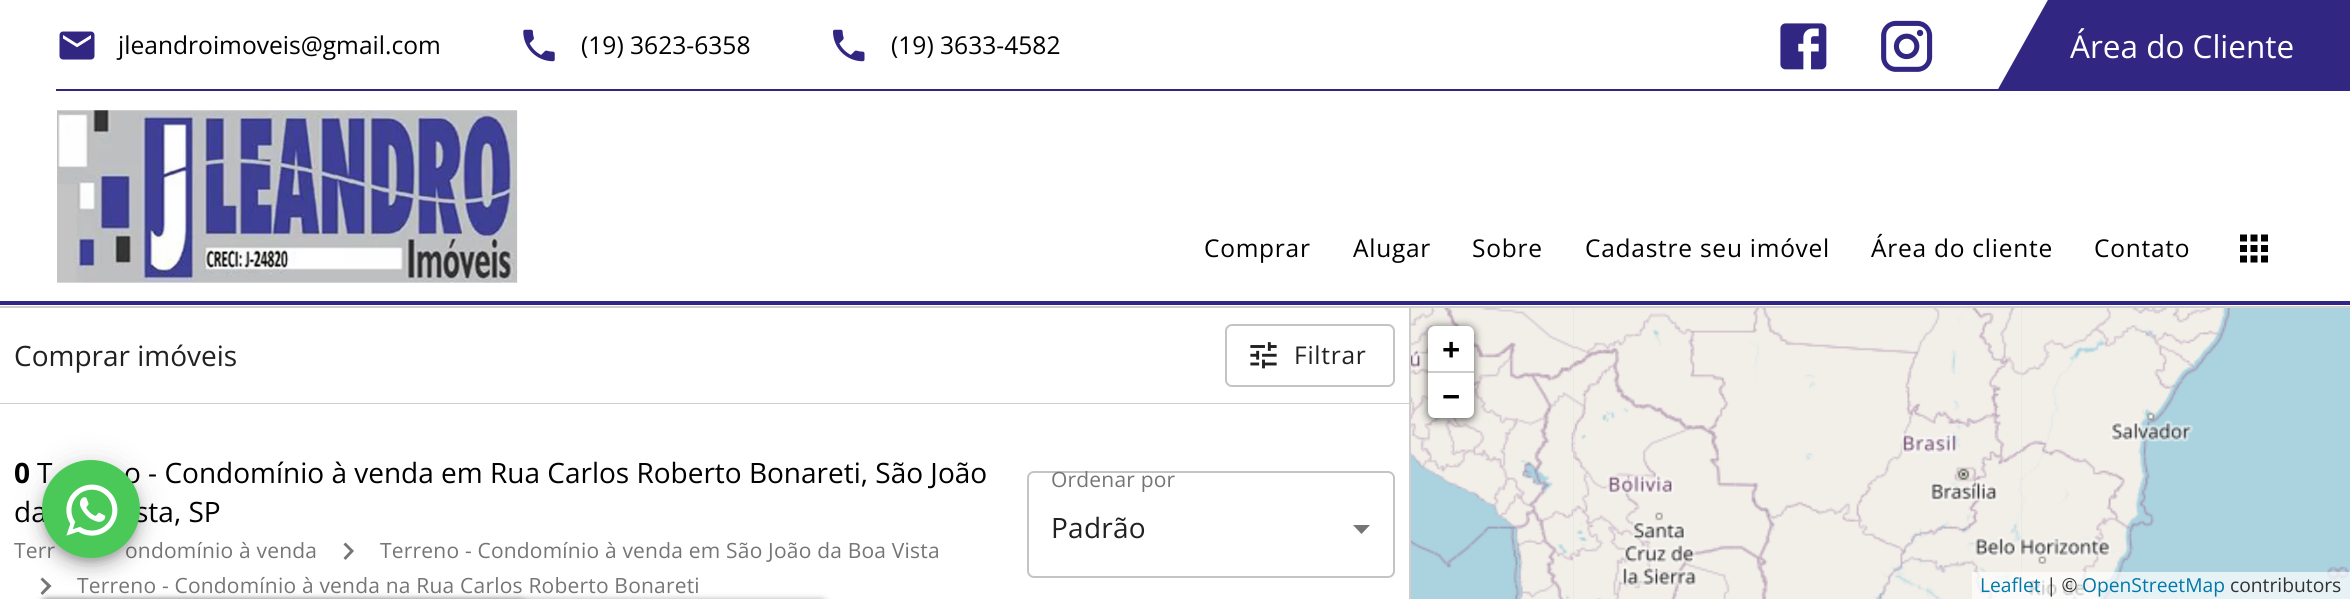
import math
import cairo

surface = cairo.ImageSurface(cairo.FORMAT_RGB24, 2350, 599)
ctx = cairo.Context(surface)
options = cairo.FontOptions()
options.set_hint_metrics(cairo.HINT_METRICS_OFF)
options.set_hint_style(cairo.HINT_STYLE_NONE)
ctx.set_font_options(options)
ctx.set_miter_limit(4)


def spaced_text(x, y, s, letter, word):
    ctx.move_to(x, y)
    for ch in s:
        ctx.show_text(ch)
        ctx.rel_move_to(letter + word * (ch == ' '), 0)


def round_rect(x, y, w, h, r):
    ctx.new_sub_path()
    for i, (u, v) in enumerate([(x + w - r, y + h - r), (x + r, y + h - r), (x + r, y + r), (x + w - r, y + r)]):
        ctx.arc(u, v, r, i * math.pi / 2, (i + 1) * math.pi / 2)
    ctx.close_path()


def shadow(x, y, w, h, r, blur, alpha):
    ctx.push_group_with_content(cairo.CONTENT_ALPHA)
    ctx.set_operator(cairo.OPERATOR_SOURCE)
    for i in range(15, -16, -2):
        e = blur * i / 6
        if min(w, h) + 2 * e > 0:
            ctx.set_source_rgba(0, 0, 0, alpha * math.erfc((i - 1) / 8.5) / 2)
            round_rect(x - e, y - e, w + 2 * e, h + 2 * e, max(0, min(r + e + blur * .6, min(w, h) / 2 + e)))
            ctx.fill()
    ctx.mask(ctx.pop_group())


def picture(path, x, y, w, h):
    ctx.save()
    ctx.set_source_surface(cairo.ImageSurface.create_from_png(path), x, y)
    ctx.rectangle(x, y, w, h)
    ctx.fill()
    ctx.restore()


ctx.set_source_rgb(1, 1, 1)
ctx.paint()
ctx.set_source_rgb(0.192, 0.153, 0.514)
ctx.rectangle(0, 301, 2350, 4)
ctx.fill()
ctx.new_path()
ctx.move_to(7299, 91)
ctx.line_to(1997, 91)
ctx.line_to(2049, -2)
ctx.line_to(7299, -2)
ctx.close_path()
ctx.fill()
ctx.rectangle(56, 89, 1943, 2)
ctx.fill()
picture("img1.png", 59, 31, 36, 29)
ctx.select_font_face("Open Sans")
ctx.set_font_size(24.6)
ctx.set_source_rgb(0, 0, 0)
ctx.move_to(118, 54)
ctx.show_text("jleandroimoveis@gmail.com")
picture("img2.png", 523, 29, 32, 33)
ctx.move_to(581, 54)
ctx.show_text("(19) 3623-6358")
picture("img3.png", 833, 29, 32, 33)
ctx.move_to(891, 54)
ctx.show_text("(19) 3633-4582")
picture("img4.png", 1780, 23, 47, 47)
picture("img5.png", 1881, 20, 52, 52)
ctx.set_font_size(31.5)
ctx.set_source_rgb(1, 1, 1)
ctx.move_to(2070, 58)
ctx.show_text("Área do Cliente")
picture("img6.png", 57, 110, 461, 173)
ctx.set_font_size(24.5)
ctx.set_source_rgb(0, 0, 0)
spaced_text(1204, 257, "Comprar", 0.75, 0)
spaced_text(1353, 257, "Alugar", 0.75, 0)
spaced_text(1472, 257, "Sobre", 0.75, 0)
spaced_text(1585, 257, "Cadastre seu imóvel", 0.75, 0)
spaced_text(1871, 257, "Área do cliente", 0.75, 0)
spaced_text(2094, 257, "Contato", 0.75, 0)
picture("img7.png", 2240, 234, 28, 29)
ctx.set_source_rgb(0.808, 0.808, 0.808)
ctx.rectangle(0, 306, 2350, 2)
ctx.fill()
ctx.rectangle(1409, 308, 2, 291)
ctx.fill()
ctx.rectangle(0, 403, 1409, 1)
ctx.fill()
ctx.set_font_size(28)
ctx.set_source_rgb(0.129, 0.129, 0.129)
ctx.move_to(14, 366)
ctx.show_text("Comprar imóveis")
round_rect(1226, 325, 168, 61, 6)
ctx.set_source_rgb(0.769, 0.769, 0.769)
ctx.stroke()
picture("img8.png", 1250, 342, 27, 27)
ctx.set_font_size(24.5)
ctx.set_source_rgb(0.129, 0.129, 0.129)
spaced_text(1294, 364, "Filtrar", 0.75, 0)
ctx.select_font_face("Open Sans", cairo.FONT_SLANT_NORMAL, cairo.FONT_WEIGHT_BOLD)
ctx.set_font_size(28)
ctx.set_source_rgb(0, 0, 0)
ctx.move_to(14, 483)
ctx.show_text("0")
ctx.select_font_face("Open Sans")
ctx.move_to(37, 483)
ctx.show_text("T")
ctx.move_to(124, 483)
ctx.show_text("o - Condomínio à venda em Rua Carlos Roberto Bonareti, São João")
ctx.move_to(14, 522)
ctx.show_text("da")
ctx.move_to(135, 522)
ctx.show_text("sta, SP")
ctx.set_font_size(21)
ctx.set_source_rgb(0.459, 0.459, 0.459)
spaced_text(14, 558, "Terr", 0.2, 0)
spaced_text(125, 558, "ondomínio à venda", 0.2, 0)
ctx.new_path()
ctx.move_to(345.5, 542.5)
ctx.line_to(343.5, 544.5)
ctx.line_to(350, 551)
ctx.line_to(343.5, 558)
ctx.line_to(345.5, 560)
ctx.line_to(354, 551)
ctx.close_path()
ctx.fill()
spaced_text(380, 558, "Terreno - Condomínio à venda em São João da Boa Vista", 0.2, 0)
ctx.new_path()
ctx.move_to(42.5, 577.5)
ctx.line_to(40.5, 579.5)
ctx.line_to(47, 586)
ctx.line_to(40.5, 593)
ctx.line_to(42.5, 595)
ctx.line_to(51.5, 586)
ctx.close_path()
ctx.fill()
spaced_text(77, 593, "Terreno - Condomínio à venda na Rua Carlos Roberto Bonareti", 0.2, 0)
ctx.new_path()
ctx.move_to(1353, 525)
ctx.line_to(1361.5, 534)
ctx.line_to(1370, 525)
ctx.close_path()
ctx.fill()
round_rect(1028, 472, 366, 105, 6)
ctx.set_source_rgb(0.769, 0.769, 0.769)
ctx.stroke()
ctx.set_source_rgb(0.459, 0.459, 0.459)
spaced_text(1051, 487, "Ordenar por", 0.2, 0)
ctx.set_font_size(28)
ctx.set_source_rgb(0.129, 0.129, 0.129)
spaced_text(1051, 538, "Padrão", 0.25, 0)
ctx.set_source_rgb(0.867, 0.867, 0.867)
ctx.rectangle(1573, 308, 449, 291)
ctx.fill()
picture("img9.png", 1411, 308, 162, 291)
picture("img10.png", 1573, 308, 448, 291)
picture("img11.png", 2020, 308, 330, 291)
ctx.set_source_rgb(0, 0, 0)
shadow(1428, 327, 46, 93, 7, 4.5, 0.65)
ctx.set_source_rgb(1, 1, 1)
ctx.new_path()
ctx.move_to(1435, 326)
ctx.line_to(1467, 326)
ctx.curve_to(1471, 326, 1474, 329, 1474, 333)
ctx.line_to(1474, 373)
ctx.line_to(1428, 373)
ctx.line_to(1428, 333)
ctx.curve_to(1428, 329, 1431, 326, 1435, 326)
ctx.close_path()
ctx.fill()
ctx.set_source_rgb(0.8, 0.8, 0.8)
ctx.rectangle(1428, 371, 46, 2)
ctx.fill()
ctx.select_font_face("Open Sans", cairo.FONT_SLANT_NORMAL, cairo.FONT_WEIGHT_BOLD)
ctx.set_font_size(32)
ctx.set_source_rgb(0, 0, 0)
ctx.move_to(1442, 361)
ctx.show_text("+")
ctx.set_source_rgb(1, 1, 1)
ctx.new_path()
ctx.move_to(1428, 373)
ctx.line_to(1474, 373)
ctx.line_to(1474, 411)
ctx.curve_to(1474, 415, 1471, 418, 1467, 418)
ctx.line_to(1435, 418)
ctx.curve_to(1431, 418, 1428, 415, 1428, 411)
ctx.close_path()
ctx.fill()
ctx.set_source_rgb(0, 0, 0)
ctx.move_to(1442, 408)
ctx.show_text("−")
ctx.set_source_rgba(1, 1, 1, 0.7)
ctx.rectangle(1972, 572, 378, 27)
ctx.fill()
ctx.select_font_face("Open Sans")
ctx.set_font_size(19.25)
ctx.set_source_rgb(0, 0.471, 0.659)
ctx.move_to(1980, 592)
ctx.show_text("Leaflet")
ctx.set_source_rgb(0.2, 0.2, 0.2)
ctx.move_to(2046, 592)
ctx.show_text("| ©")
ctx.set_source_rgb(0, 0.471, 0.659)
ctx.move_to(2082, 592)
ctx.show_text("OpenStreetMap")
ctx.set_source_rgb(0.2, 0.2, 0.2)
ctx.move_to(2230, 592)
ctx.show_text("contributors")
ctx.set_source_rgb(0, 0, 0)
shadow(42, 462, 98, 98, 49, 16, 0.12)
shadow(42, 471, 98, 98, 49, 9, 0.14)
shadow(44, 467, 94, 95, 47, 4.5, 0.2)
ctx.set_source_rgb(0.29, 0.788, 0.349)
ctx.arc(91, 509, 49, 0, 2 * math.pi)
ctx.fill()
picture("img12.png", 66, 484, 52, 52)
ctx.set_source_rgb(0, 0, 0)
shadow(40, 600, 487, 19, 9, 3.5, 0.4)
shadow(40, 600, 788, 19, 9, 3.5, 0.4)
surface.write_to_png("page.png")
